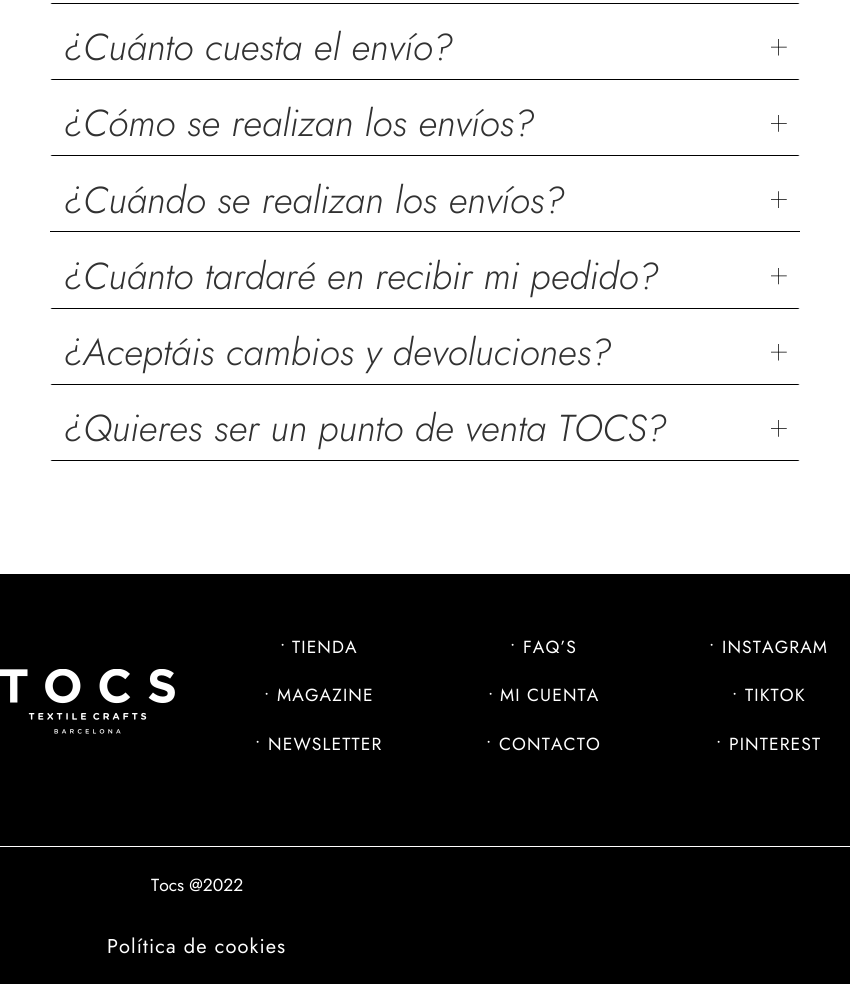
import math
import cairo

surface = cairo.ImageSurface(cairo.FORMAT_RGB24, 850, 984)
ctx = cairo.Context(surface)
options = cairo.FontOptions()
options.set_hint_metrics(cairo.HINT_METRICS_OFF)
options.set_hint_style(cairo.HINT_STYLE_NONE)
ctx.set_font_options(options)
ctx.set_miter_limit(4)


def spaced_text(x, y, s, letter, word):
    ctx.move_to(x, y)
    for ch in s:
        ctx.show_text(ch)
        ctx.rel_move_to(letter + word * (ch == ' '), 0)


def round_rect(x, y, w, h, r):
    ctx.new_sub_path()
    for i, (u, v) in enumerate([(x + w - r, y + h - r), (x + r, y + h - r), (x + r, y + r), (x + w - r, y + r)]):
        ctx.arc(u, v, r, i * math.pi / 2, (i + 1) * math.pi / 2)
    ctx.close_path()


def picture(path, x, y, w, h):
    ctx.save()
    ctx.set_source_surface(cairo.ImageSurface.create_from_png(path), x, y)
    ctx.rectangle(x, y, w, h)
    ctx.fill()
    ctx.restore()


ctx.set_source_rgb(1, 1, 1)
ctx.paint()
ctx.save()
round_rect(50, -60, 750, 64, 2.5)
ctx.clip()
ctx.set_source_rgb(0, 0, 0)
ctx.rectangle(50, 3, 750, 1)
ctx.fill()
ctx.restore()
ctx.save()
round_rect(50, 16, 750, 64, 2.5)
ctx.clip()
ctx.set_source_rgb(0, 0, 0)
ctx.rectangle(50, 79, 750, 1)
ctx.fill()
ctx.restore()
ctx.select_font_face("Jost Light", cairo.FONT_SLANT_ITALIC)
ctx.set_font_size(37.5)
ctx.set_source_rgb(0.192, 0.192, 0.192)
ctx.move_to(63, 60)
ctx.show_text("¿Cuánto cuesta el envío?")
picture("img1.png", 771, 39, 16, 17)
ctx.save()
round_rect(50, 93, 750, 63, 2.5)
ctx.clip()
ctx.set_source_rgb(0, 0, 0)
ctx.rectangle(50, 155, 750, 1)
ctx.fill()
ctx.restore()
ctx.move_to(63, 136)
ctx.show_text("¿Cómo se realizan los envíos?")
picture("img2.png", 771, 115, 16, 17)
ctx.set_source_rgb(0, 0, 0)
ctx.rectangle(50, 231, 750, 1)
ctx.fill()
ctx.set_source_rgb(0.192, 0.192, 0.192)
ctx.move_to(63, 213)
ctx.show_text("¿Cuándo se realizan los envíos?")
picture("img3.png", 771, 191, 16, 17)
ctx.save()
round_rect(50, 245, 750, 64, 2.5)
ctx.clip()
ctx.set_source_rgb(0, 0, 0)
ctx.rectangle(50, 308, 750, 1)
ctx.fill()
ctx.restore()
ctx.move_to(63, 289)
ctx.show_text("¿Cuánto tardaré en recibir mi pedido?")
picture("img4.png", 771, 268, 16, 17)
ctx.save()
round_rect(50, 321, 750, 64, 2.5)
ctx.clip()
ctx.set_source_rgb(0, 0, 0)
ctx.rectangle(50, 384, 750, 1)
ctx.fill()
ctx.restore()
ctx.move_to(63, 365)
ctx.show_text("¿Aceptáis cambios y devoluciones?")
picture("img1.png", 771, 344, 16, 17)
ctx.save()
round_rect(50, 398, 750, 63, 2.5)
ctx.clip()
ctx.set_source_rgb(0, 0, 0)
ctx.rectangle(50, 460, 750, 1)
ctx.fill()
ctx.restore()
ctx.move_to(63, 441)
ctx.show_text("¿Quieres ser un punto de venta TOCS?")
picture("img2.png", 771, 420, 16, 17)
ctx.set_source_rgb(0, 0, 0)
ctx.rectangle(0, 574, 850, 410)
ctx.fill()
picture("img5.png", 0, 669, 175, 65)
ctx.select_font_face("Jost")
ctx.set_font_size(17.5)
ctx.set_source_rgb(1, 1, 1)
spaced_text(280, 649, "·", 1.1, 0)
spaced_text(292, 653, "TIENDA", 1.1, 0)
spaced_text(264, 698, "·", 1.1, 0)
spaced_text(277, 701, "MAGAZINE", 1.1, 0)
spaced_text(255, 746, "·", 1.1, 0)
spaced_text(268, 750, "NEWSLETTER", 1.1, 0)
spaced_text(510, 649, "·", 1.1, 0)
spaced_text(523, 653, "FAQ’S", 1.1, 0)
spaced_text(488, 698, "·", 1.1, 0)
spaced_text(500, 701, "MI CUENTA", 1.1, 0)
spaced_text(486, 746, "·", 1.1, 0)
spaced_text(499, 750, "CONTACTO", 1.1, 0)
spaced_text(709, 649, "·", 1.1, 0)
spaced_text(722, 653, "INSTAGRAM", 1.1, 0)
spaced_text(732, 698, "·", 1.1, 0)
spaced_text(745, 701, "TIKTOK", 1.1, 0)
spaced_text(716, 746, "·", 1.1, 0)
spaced_text(729, 750, "PINTEREST", 1.1, 0)
ctx.set_source_rgb(1, 0.996, 0.996)
ctx.rectangle(0, 846, 850, 1)
ctx.fill()
ctx.set_source_rgb(1, 1, 1)
ctx.move_to(151, 891)
ctx.show_text("Tocs @2022")
ctx.set_font_size(20)
spaced_text(107, 953, "Política de cookies", 1.1, 0)
surface.write_to_png("page.png")
